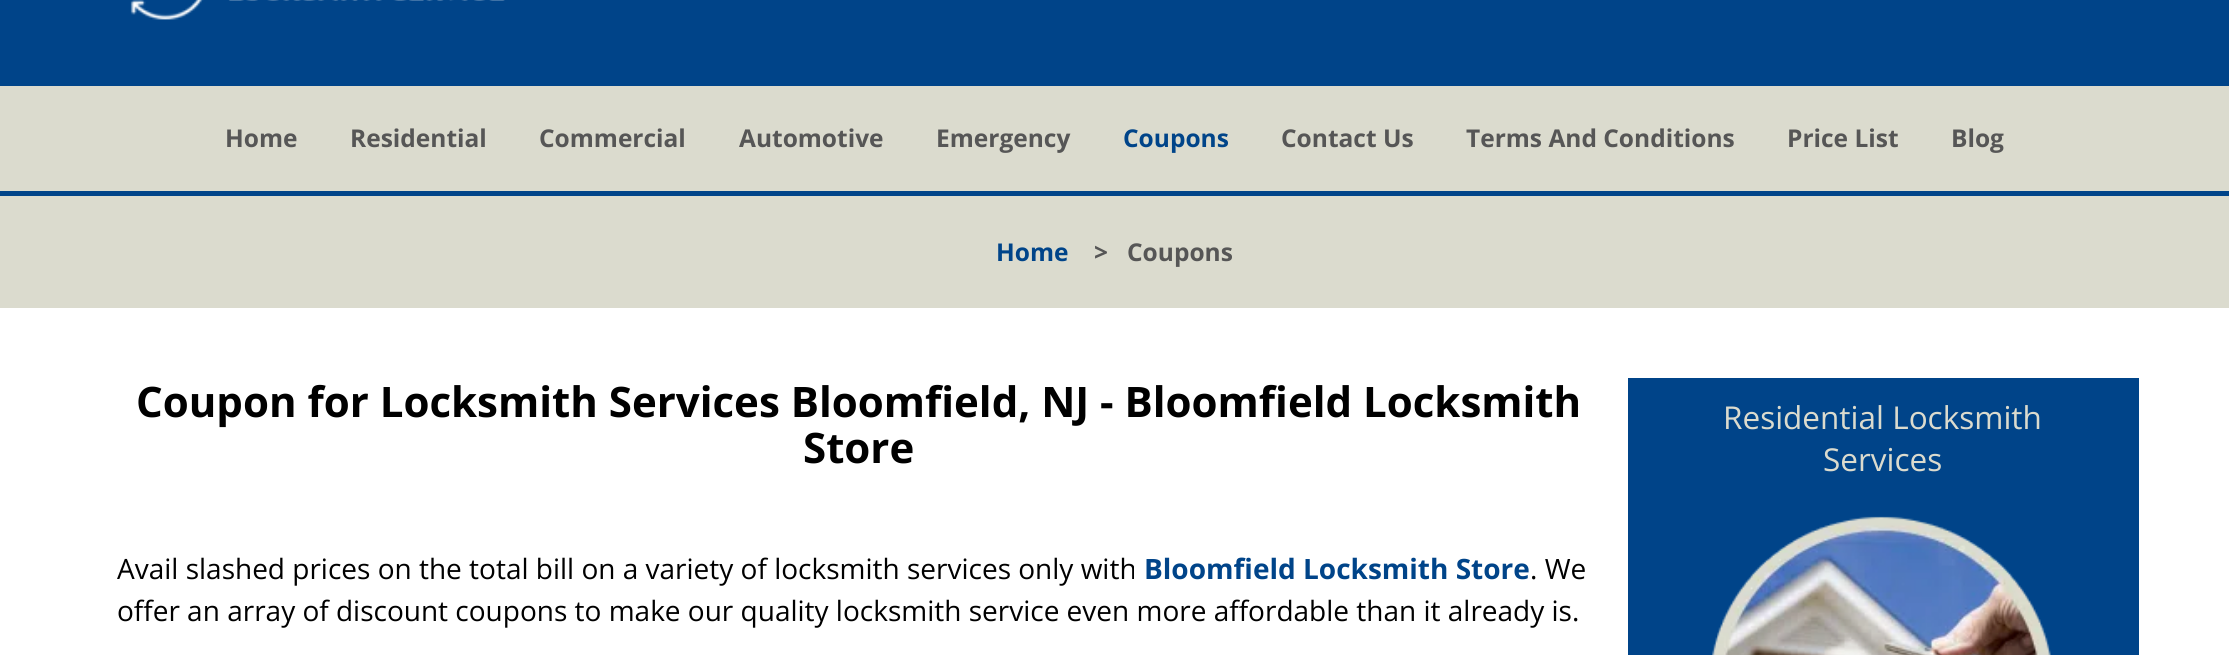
import math
import cairo

surface = cairo.ImageSurface(cairo.FORMAT_RGB24, 2229, 655)
ctx = cairo.Context(surface)
options = cairo.FontOptions()
options.set_hint_metrics(cairo.HINT_METRICS_OFF)
options.set_hint_style(cairo.HINT_STYLE_NONE)
ctx.set_font_options(options)
ctx.set_miter_limit(4)


def picture(path, x, y, w, h):
    ctx.save()
    ctx.set_source_surface(cairo.ImageSurface.create_from_png(path), x, y)
    ctx.rectangle(x, y, w, h)
    ctx.fill()
    ctx.restore()


ctx.set_source_rgb(1, 1, 1)
ctx.paint()
ctx.set_source_rgb(0, 0.267, 0.537)
ctx.rectangle(0, 0, 2229, 86)
ctx.fill()
picture("img1.png", 130, 0, 375, 20)
ctx.set_source_rgb(0.859, 0.859, 0.808)
ctx.rectangle(0, 86, 2229, 105)
ctx.fill()
ctx.set_source_rgb(0, 0.267, 0.537)
ctx.rectangle(0, 191, 2229, 5)
ctx.fill()
ctx.select_font_face("Open Sans", cairo.FONT_SLANT_NORMAL, cairo.FONT_WEIGHT_BOLD)
ctx.set_font_size(24.5)
ctx.set_source_rgb(0.337, 0.337, 0.337)
ctx.move_to(225, 147)
ctx.show_text("Home")
ctx.move_to(350, 147)
ctx.show_text("Residential")
ctx.move_to(539, 147)
ctx.show_text("Commercial")
ctx.move_to(739, 147)
ctx.show_text("Automotive")
ctx.move_to(936, 147)
ctx.show_text("Emergency")
ctx.set_source_rgb(0, 0.267, 0.537)
ctx.move_to(1123, 147)
ctx.show_text("Coupons")
ctx.set_source_rgb(0.337, 0.337, 0.337)
ctx.move_to(1281, 147)
ctx.show_text("Contact Us")
ctx.move_to(1466, 147)
ctx.show_text("Terms And Conditions")
ctx.move_to(1787, 147)
ctx.show_text("Price List")
ctx.move_to(1951, 147)
ctx.show_text("Blog")
ctx.set_source_rgb(0.859, 0.859, 0.808)
ctx.rectangle(0, 196, 2229, 112)
ctx.fill()
ctx.set_source_rgb(0, 0.267, 0.537)
ctx.move_to(996, 261)
ctx.show_text("Home")
ctx.set_source_rgb(0.337, 0.337, 0.337)
ctx.move_to(1094, 261)
ctx.show_text(">")
ctx.move_to(1127, 261)
ctx.show_text("Coupons")
ctx.set_font_size(42)
ctx.set_source_rgb(0, 0, 0)
ctx.move_to(136, 417)
ctx.show_text("Coupon for Locksmith Services Bloomfield, NJ - Bloomfield Locksmith")
ctx.move_to(803, 463)
ctx.show_text("Store")
ctx.select_font_face("Open Sans")
ctx.set_font_size(28)
ctx.move_to(117, 579)
ctx.show_text("Avail slashed prices on the total bill on a variety of locksmith services only with")
ctx.select_font_face("Open Sans", cairo.FONT_SLANT_NORMAL, cairo.FONT_WEIGHT_BOLD)
ctx.set_source_rgb(0, 0.267, 0.537)
ctx.move_to(1144, 579)
ctx.show_text("Bloomfield Locksmith Store")
ctx.select_font_face("Open Sans")
ctx.set_source_rgb(0, 0, 0)
ctx.move_to(1530, 579)
ctx.show_text(". We")
ctx.move_to(117, 621)
ctx.show_text("offer an array of discount coupons to make our quality locksmith service even more affordable than it already is.")
ctx.set_source_rgb(0, 0.267, 0.537)
ctx.rectangle(1628, 378, 511, 277)
ctx.fill()
ctx.set_font_size(31.5)
ctx.set_source_rgb(0.859, 0.859, 0.808)
ctx.move_to(1723, 429)
ctx.show_text("Residential Locksmith")
ctx.move_to(1823, 471)
ctx.show_text("Services")
picture("img2.png", 1712, 516, 339, 139)
surface.write_to_png("page.png")
